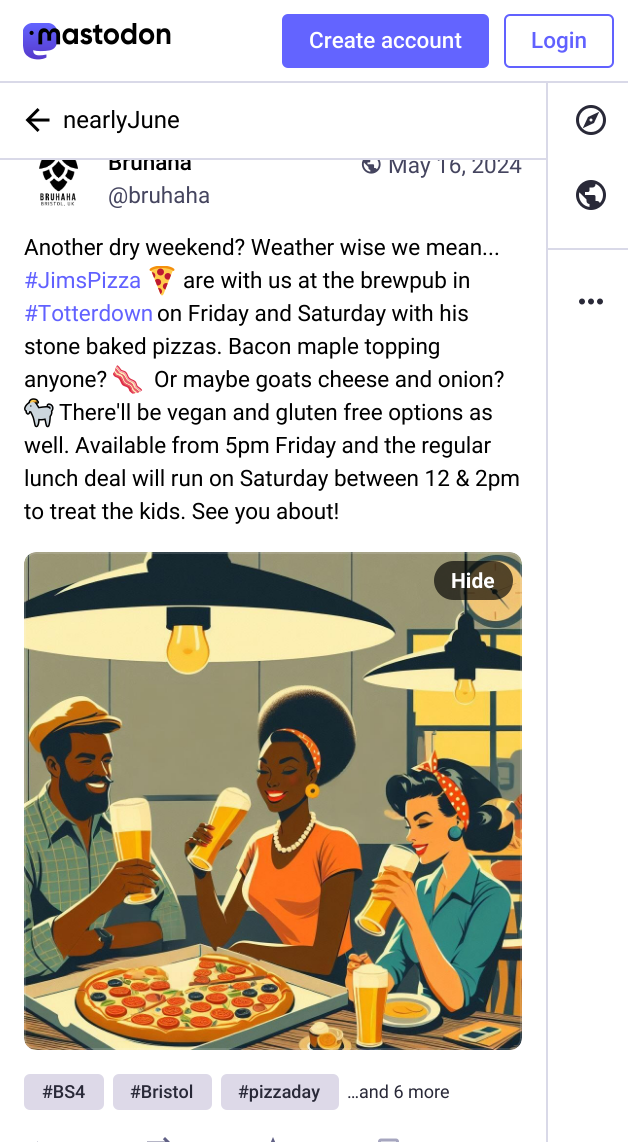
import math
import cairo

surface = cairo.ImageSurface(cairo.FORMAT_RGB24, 628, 1142)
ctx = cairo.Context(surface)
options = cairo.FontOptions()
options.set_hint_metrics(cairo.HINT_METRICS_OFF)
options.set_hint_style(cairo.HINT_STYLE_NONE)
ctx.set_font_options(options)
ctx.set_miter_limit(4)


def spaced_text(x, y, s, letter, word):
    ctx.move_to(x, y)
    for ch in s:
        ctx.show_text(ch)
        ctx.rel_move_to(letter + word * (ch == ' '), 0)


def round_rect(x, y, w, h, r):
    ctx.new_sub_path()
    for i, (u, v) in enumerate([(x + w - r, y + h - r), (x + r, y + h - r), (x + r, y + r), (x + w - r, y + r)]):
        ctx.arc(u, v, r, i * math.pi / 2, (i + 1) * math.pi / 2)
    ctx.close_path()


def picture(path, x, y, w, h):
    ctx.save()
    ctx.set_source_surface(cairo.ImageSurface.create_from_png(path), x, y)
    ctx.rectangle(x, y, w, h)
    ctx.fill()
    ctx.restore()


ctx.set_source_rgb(1, 1, 1)
ctx.paint()
ctx.set_source_rgb(0.851, 0.851, 0.91)
ctx.rectangle(0, 81, 628, 2)
ctx.fill()
picture("img1.png", 23, 23, 148, 37)
ctx.set_source_rgb(0.388, 0.392, 1)
round_rect(282, 14, 207, 54, 6)
ctx.fill()
ctx.select_font_face("Roboto Medium")
ctx.set_font_size(22.5)
ctx.set_source_rgb(1, 1, 1)
ctx.move_to(309, 48)
ctx.show_text("Create account")
round_rect(505, 15, 108, 52, 5)
ctx.set_source_rgb(0.38, 0.38, 1)
ctx.stroke()
ctx.move_to(531, 48)
ctx.show_text("Login")
ctx.set_source_rgb(0, 0, 0)
ctx.move_to(108, 170)
ctx.show_text("Bruhaha")
ctx.select_font_face("Roboto")
ctx.set_source_rgb(0.271, 0.271, 0.373)
ctx.move_to(388, 173)
ctx.show_text("May 16, 2024")
ctx.set_source_rgb(1, 1, 1)
ctx.rectangle(109, 153, 411, 5)
ctx.fill()
ctx.set_source_rgb(0.851, 0.851, 0.91)
ctx.rectangle(0, 158, 546, 2)
ctx.fill()
picture("img2.png", 25, 108, 25, 24)
ctx.set_font_size(24)
ctx.set_source_rgb(0, 0, 0)
ctx.move_to(63, 128)
ctx.show_text("nearlyJune")
picture("img3.png", 39, 160, 39, 46)
ctx.set_font_size(22.5)
ctx.set_source_rgb(0.271, 0.271, 0.373)
ctx.move_to(108, 203)
ctx.show_text("@bruhaha")
picture("img4.png", 361, 160, 20, 14)
ctx.set_source_rgb(0, 0, 0)
ctx.move_to(24, 255)
ctx.show_text("Another dry weekend? Weather wise we mean...")
ctx.set_source_rgb(0.38, 0.38, 1)
ctx.move_to(24, 288)
ctx.show_text("#JimsPizza")
picture("img5.png", 149, 266, 26, 30)
ctx.set_source_rgb(0, 0, 0)
ctx.move_to(183, 288)
ctx.show_text("are with us at the brewpub in")
ctx.set_source_rgb(0.38, 0.38, 1)
ctx.move_to(24, 321)
ctx.show_text("#Totterdown")
ctx.set_source_rgb(0, 0, 0)
ctx.move_to(157, 321)
ctx.show_text("on Friday and Saturday with his")
ctx.move_to(24, 354)
ctx.show_text("stone baked pizzas. Bacon maple topping")
ctx.move_to(24, 387)
ctx.show_text("anyone?")
picture("img6.png", 113, 365, 30, 29)
ctx.move_to(154, 387)
ctx.show_text("Or maybe goats cheese and onion?")
picture("img7.png", 24, 398, 30, 30)
ctx.move_to(59, 420)
ctx.show_text("There'll be vegan and gluten free options as")
spaced_text(24, 453, "well. Available from 5pm Friday and the regular", 0, -0.25)
ctx.move_to(24, 486)
ctx.show_text("lunch deal will run on Saturday between 12 & 2pm")
ctx.move_to(24, 519)
ctx.show_text("to treat the kids. See you about!")
picture("img8.png", 24, 552, 498, 498)
round_rect(25, 553, 496, 496, 11)
ctx.set_source_rgba(0.988, 0.973, 1, 0.15)
ctx.stroke()
ctx.set_source_rgba(0, 0, 0, 0.65)
round_rect(434, 561, 79, 39, 19.5)
ctx.fill()
ctx.select_font_face("Roboto", cairo.FONT_SLANT_NORMAL, cairo.FONT_WEIGHT_BOLD)
ctx.set_font_size(21)
ctx.set_source_rgb(1, 1, 1)
ctx.move_to(451, 588)
ctx.show_text("Hide")
ctx.set_source_rgb(0.867, 0.851, 0.91)
round_rect(24, 1074, 80, 36, 6)
ctx.fill()
ctx.select_font_face("Roboto Medium")
ctx.set_font_size(18)
ctx.set_source_rgb(0.161, 0.161, 0.22)
ctx.move_to(42, 1098)
ctx.show_text("#BS4")
ctx.set_source_rgb(0.867, 0.851, 0.91)
round_rect(113, 1074, 99, 36, 6)
ctx.fill()
ctx.set_source_rgb(0.161, 0.161, 0.22)
ctx.move_to(130, 1098)
ctx.show_text("#Bristol")
ctx.set_source_rgb(0.867, 0.851, 0.91)
round_rect(221, 1074, 118, 36, 6)
ctx.fill()
ctx.set_source_rgb(0.161, 0.161, 0.22)
ctx.move_to(238, 1098)
ctx.show_text("#pizzaday")
ctx.select_font_face("Roboto")
ctx.move_to(347, 1098)
ctx.show_text("…and 6 more")
ctx.set_source_rgb(0.843, 0.843, 0.882)
ctx.rectangle(37, 1141, 1, 1)
ctx.fill()
picture("img9.png", 147, 1137, 23, 5)
picture("img10.png", 271, 1137, 4, 5)
picture("img11.png", 378, 1138, 21, 4)
ctx.set_source_rgb(0.851, 0.851, 0.91)
ctx.rectangle(546, 83, 2, 1059)
ctx.fill()
picture("img12.png", 576, 105, 30, 30)
picture("img13.png", 576, 180, 30, 30)
ctx.rectangle(548, 248, 80, 2)
ctx.fill()
picture("img14.png", 579, 298, 24, 7)
surface.write_to_png("page.png")
